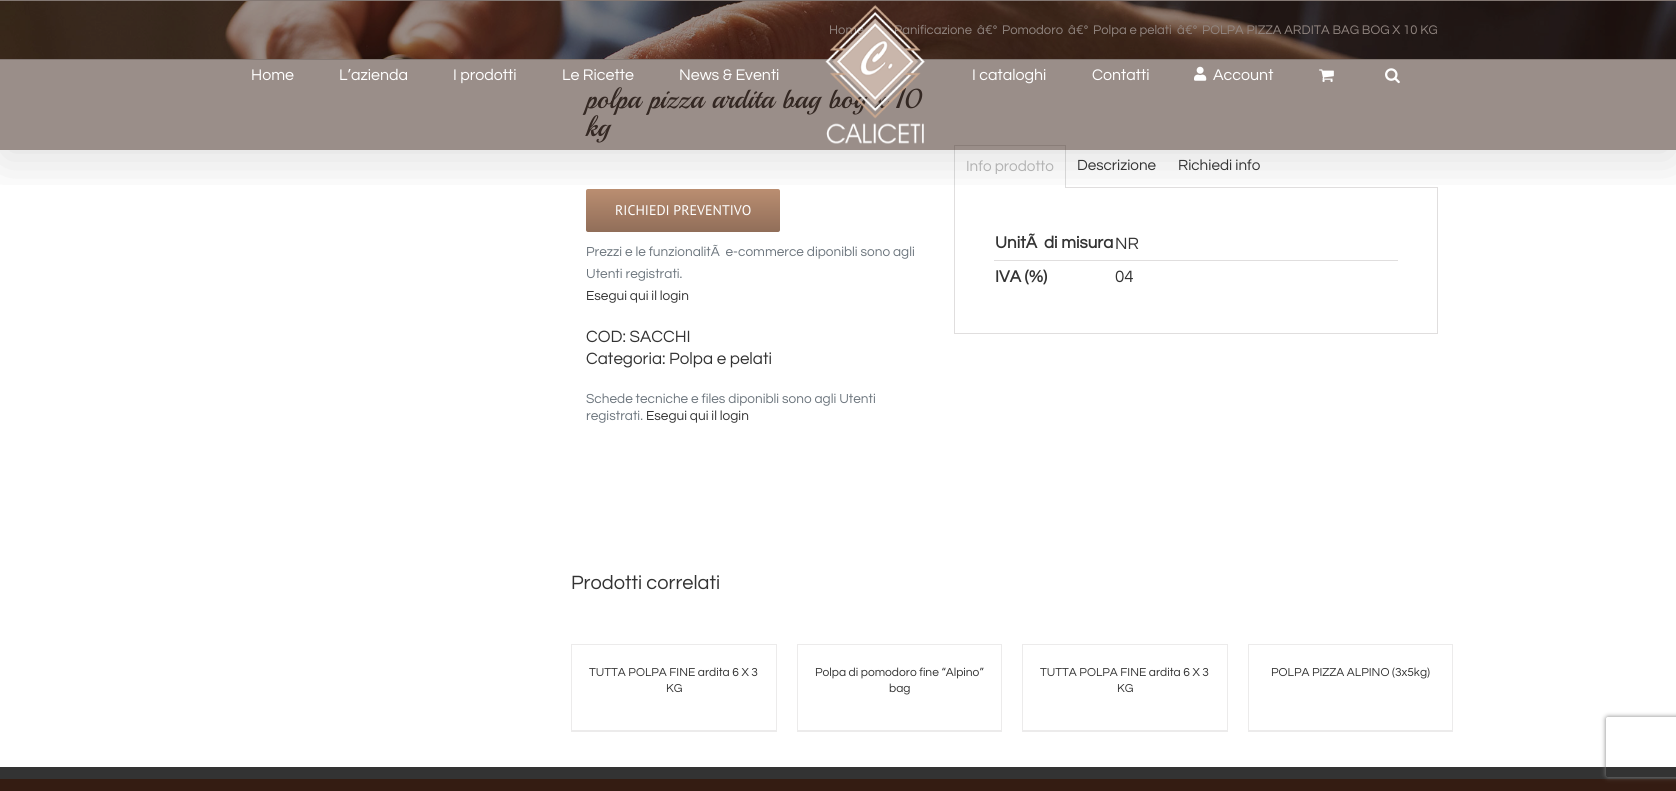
import math
import cairo

surface = cairo.ImageSurface(cairo.FORMAT_RGB24, 1676, 791)
ctx = cairo.Context(surface)
options = cairo.FontOptions()
options.set_hint_metrics(cairo.HINT_METRICS_OFF)
options.set_hint_style(cairo.HINT_STYLE_NONE)
ctx.set_font_options(options)
ctx.set_miter_limit(4)


def round_rect(x, y, w, h, r):
    ctx.new_sub_path()
    for i, (u, v) in enumerate([(x + w - r, y + h - r), (x + r, y + h - r), (x + r, y + r), (x + w - r, y + r)]):
        ctx.arc(u, v, r, i * math.pi / 2, (i + 1) * math.pi / 2)
    ctx.close_path()


def shadow(x, y, w, h, r, blur, alpha):
    ctx.push_group_with_content(cairo.CONTENT_ALPHA)
    ctx.set_operator(cairo.OPERATOR_SOURCE)
    for i in range(15, -16, -2):
        e = blur * i / 6
        if min(w, h) + 2 * e > 0:
            ctx.set_source_rgba(0, 0, 0, alpha * math.erfc((i - 1) / 8.5) / 2)
            round_rect(x - e, y - e, w + 2 * e, h + 2 * e, max(0, min(r + e + blur * .6, min(w, h) / 2 + e)))
            ctx.fill()
    ctx.mask(ctx.pop_group())


def picture(path, x, y, w, h):
    ctx.save()
    ctx.set_source_surface(cairo.ImageSurface.create_from_png(path), x, y)
    ctx.rectangle(x, y, w, h)
    ctx.fill()
    ctx.restore()


ctx.set_source_rgb(1, 1, 1)
ctx.paint()
ctx.set_source_rgb(0.604, 0.557, 0.537)
ctx.rectangle(0, 60, 1676, 90)
ctx.fill()
picture("img1.png", 0, 1, 1676, 58)
ctx.set_source_rgb(0.514, 0.471, 0.451)
ctx.rectangle(0, 0, 1676, 1)
ctx.fill()
ctx.rectangle(0, 59, 1676, 1)
ctx.fill()
ctx.select_font_face("Questrial")
ctx.set_font_size(13)
ctx.set_source_rgb(0.569, 0.522, 0.502)
ctx.move_to(829, 34)
ctx.show_text("Home")
ctx.move_to(894, 34)
ctx.show_text("Panificazione")
ctx.move_to(977, 34)
ctx.show_text("â€º")
ctx.move_to(1002, 34)
ctx.show_text("Pomodoro")
ctx.move_to(1068, 34)
ctx.show_text("â€º")
ctx.move_to(1093, 34)
ctx.show_text("Polpa e pelati")
ctx.move_to(1177, 34)
ctx.show_text("â€º")
ctx.move_to(1202, 34)
ctx.show_text("POLPA PIZZA ARDITA BAG BOG X 10 KG")
gradient = cairo.LinearGradient(683, 189, 683, 232)
gradient.add_color_stop_rgba(0, 0.733, 0.557, 0.443, 1)
gradient.add_color_stop_rgba(1, 0.565, 0.431, 0.349, 1)
ctx.set_source(gradient)
round_rect(586, 189, 194, 43, 2)
ctx.fill()
ctx.set_source_rgb(0.878, 0.871, 0.871)
ctx.rectangle(1066, 187, 372, 1)
ctx.fill()
ctx.set_source_rgb(0.537, 0.49, 0.471)
ctx.rectangle(954, 145, 112, 1)
ctx.fill()
ctx.set_source_rgb(0.867, 0.867, 0.867)
ctx.rectangle(1065, 145, 1, 43)
ctx.fill()
ctx.set_source_rgb(0.537, 0.49, 0.471)
ctx.rectangle(1065, 145, 1, 5)
ctx.fill()
ctx.set_source_rgb(0.867, 0.867, 0.867)
ctx.rectangle(954, 145, 1, 43)
ctx.fill()
ctx.set_source_rgb(0.537, 0.49, 0.471)
ctx.rectangle(954, 145, 1, 5)
ctx.fill()
ctx.set_source_rgb(0.878, 0.871, 0.871)
ctx.rectangle(1437, 188, 1, 146)
ctx.fill()
ctx.rectangle(954, 333, 484, 1)
ctx.fill()
ctx.rectangle(954, 188, 1, 146)
ctx.fill()
ctx.save()
ctx.rectangle(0, 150, 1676, 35)
ctx.clip()
ctx.set_source_rgb(0, 0, 0)
shadow(2, 12, 1672, 146, 0, 25, 0.14)
ctx.restore()
ctx.set_font_size(16)
ctx.set_source_rgb(1, 1, 1)
ctx.move_to(251, 80)
ctx.show_text("Home")
ctx.move_to(339, 80)
ctx.show_text("L’azienda")
ctx.move_to(453, 80)
ctx.show_text("I prodotti")
ctx.move_to(562, 80)
ctx.show_text("Le Ricette")
ctx.move_to(679, 80)
ctx.show_text("News & Eventi")
ctx.select_font_face("Playball")
ctx.set_font_size(28)
ctx.set_source_rgb(0.204, 0.157, 0.137)
ctx.move_to(586, 108)
ctx.show_text("polpa pizza ardita bag bog x 10")
picture("img2.png", 825, 5, 100, 139)
ctx.select_font_face("Questrial")
ctx.set_font_size(16)
ctx.set_source_rgb(1, 1, 1)
ctx.move_to(972, 80)
ctx.show_text("I cataloghi")
ctx.move_to(1092, 80)
ctx.show_text("Contatti")
picture("img3.png", 1194, 66, 13, 15)
ctx.move_to(1213, 80)
ctx.show_text("Account")
picture("img4.png", 1319, 69, 15, 13)
picture("img5.png", 1385, 68, 15, 16)
ctx.select_font_face("Playball")
ctx.set_font_size(28)
ctx.set_source_rgb(0.204, 0.157, 0.137)
ctx.move_to(586, 136)
ctx.show_text("kg")
ctx.select_font_face("PT Sans")
ctx.set_font_size(14)
ctx.set_source_rgb(1, 1, 1)
ctx.move_to(615, 215)
ctx.show_text("RICHIEDI PREVENTIVO")
ctx.select_font_face("Questrial")
ctx.set_font_size(13.6)
ctx.set_source_rgb(0.424, 0.459, 0.49)
ctx.move_to(586, 256)
ctx.show_text("Prezzi e le funzionalitÃ  e-commerce diponibli sono agli")
ctx.move_to(586, 278)
ctx.show_text("Utenti registrati.")
ctx.set_source_rgb(0.2, 0.2, 0.2)
ctx.move_to(586, 300)
ctx.show_text("Esegui qui il login")
ctx.set_font_size(17)
ctx.move_to(586, 342)
ctx.show_text("COD: SACCHI")
ctx.move_to(586, 364)
ctx.show_text("Categoria: Polpa e pelati")
ctx.set_font_size(13.6)
ctx.set_source_rgb(0.424, 0.459, 0.49)
ctx.move_to(586, 403)
ctx.show_text("Schede tecniche e files diponibli sono agli Utenti")
ctx.move_to(586, 420)
ctx.show_text("registrati.")
ctx.set_source_rgb(0.2, 0.2, 0.2)
ctx.move_to(646, 420)
ctx.show_text("Esegui qui il login")
ctx.set_font_size(15.25)
ctx.set_source_rgb(0.694, 0.694, 0.694)
ctx.move_to(966, 171)
ctx.show_text("Info prodotto")
ctx.set_source_rgb(0.2, 0.2, 0.2)
ctx.move_to(1077, 170)
ctx.show_text("Descrizione")
ctx.move_to(1178, 170)
ctx.show_text("Richiedi info")
ctx.set_source_rgb(0.878, 0.871, 0.871)
ctx.rectangle(994, 260, 404, 1)
ctx.fill()
ctx.select_font_face("Questrial", cairo.FONT_SLANT_NORMAL, cairo.FONT_WEIGHT_BOLD)
ctx.set_font_size(17)
ctx.set_source_rgb(0.2, 0.2, 0.2)
ctx.move_to(995, 248)
ctx.show_text("UnitÃ")
ctx.move_to(1044, 248)
ctx.show_text("di misura")
ctx.select_font_face("Questrial")
ctx.move_to(1115, 249)
ctx.show_text("NR")
ctx.select_font_face("Questrial", cairo.FONT_SLANT_NORMAL, cairo.FONT_WEIGHT_BOLD)
ctx.move_to(995, 282)
ctx.show_text("IVA (%)")
ctx.select_font_face("Questrial")
ctx.move_to(1115, 282)
ctx.show_text("04")
ctx.set_font_size(20)
ctx.move_to(571, 589)
ctx.show_text("Prodotti correlati")
ctx.set_source_rgb(0.922, 0.918, 0.918)
ctx.rectangle(571, 644, 206, 1)
ctx.fill()
ctx.rectangle(776, 644, 1, 88)
ctx.fill()
ctx.rectangle(571, 730, 206, 2)
ctx.fill()
ctx.rectangle(571, 644, 1, 88)
ctx.fill()
ctx.set_font_size(12)
ctx.set_source_rgb(0.2, 0.2, 0.2)
ctx.move_to(589, 676)
ctx.show_text("TUTTA POLPA FINE ardita 6 X 3")
ctx.move_to(666, 692)
ctx.show_text("KG")
ctx.set_source_rgb(0.922, 0.918, 0.918)
ctx.rectangle(797, 644, 205, 1)
ctx.fill()
ctx.rectangle(1001, 644, 1, 88)
ctx.fill()
ctx.rectangle(797, 730, 205, 2)
ctx.fill()
ctx.rectangle(797, 644, 1, 88)
ctx.fill()
ctx.set_source_rgb(0.2, 0.2, 0.2)
ctx.move_to(815, 676)
ctx.show_text("Polpa di pomodoro fine “Alpino”")
ctx.move_to(889, 692)
ctx.show_text("bag")
ctx.set_source_rgb(0.922, 0.918, 0.918)
ctx.rectangle(1022, 644, 206, 1)
ctx.fill()
ctx.rectangle(1227, 644, 1, 88)
ctx.fill()
ctx.rectangle(1022, 730, 206, 2)
ctx.fill()
ctx.rectangle(1022, 644, 1, 88)
ctx.fill()
ctx.set_source_rgb(0.2, 0.2, 0.2)
ctx.move_to(1040, 676)
ctx.show_text("TUTTA POLPA FINE ardita 6 X 3")
ctx.move_to(1117, 692)
ctx.show_text("KG")
ctx.set_source_rgb(0.922, 0.918, 0.918)
ctx.rectangle(1248, 644, 205, 1)
ctx.fill()
ctx.rectangle(1452, 644, 1, 88)
ctx.fill()
ctx.rectangle(1248, 730, 205, 2)
ctx.fill()
ctx.rectangle(1248, 644, 1, 88)
ctx.fill()
ctx.set_source_rgb(0.2, 0.2, 0.2)
ctx.move_to(1271, 676)
ctx.show_text("POLPA PIZZA ALPINO (3x5kg)")
ctx.set_source_rgb(0.204, 0.11, 0.071)
ctx.rectangle(0, 779, 1676, 12)
ctx.fill()
ctx.set_source_rgb(0.2, 0.2, 0.2)
ctx.rectangle(0, 767, 1676, 12)
ctx.fill()
ctx.save()
ctx.set_fill_rule(cairo.FILL_RULE_EVEN_ODD)
ctx.new_path()
ctx.move_to(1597, 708)
ctx.line_to(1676, 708)
ctx.line_to(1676, 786)
ctx.line_to(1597, 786)
ctx.close_path()
ctx.move_to(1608, 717)
ctx.line_to(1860, 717)
ctx.curve_to(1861, 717, 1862, 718, 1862, 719)
ctx.line_to(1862, 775)
ctx.curve_to(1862, 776, 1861, 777, 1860, 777)
ctx.line_to(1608, 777)
ctx.curve_to(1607, 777, 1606, 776, 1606, 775)
ctx.line_to(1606, 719)
ctx.curve_to(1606, 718, 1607, 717, 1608, 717)
ctx.close_path()
ctx.clip()
ctx.set_source_rgb(0.502, 0.502, 0.502)
shadow(1606, 717, 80, 60, 2, 2.5, 1)
ctx.restore()
surface.write_to_png("page.png")
